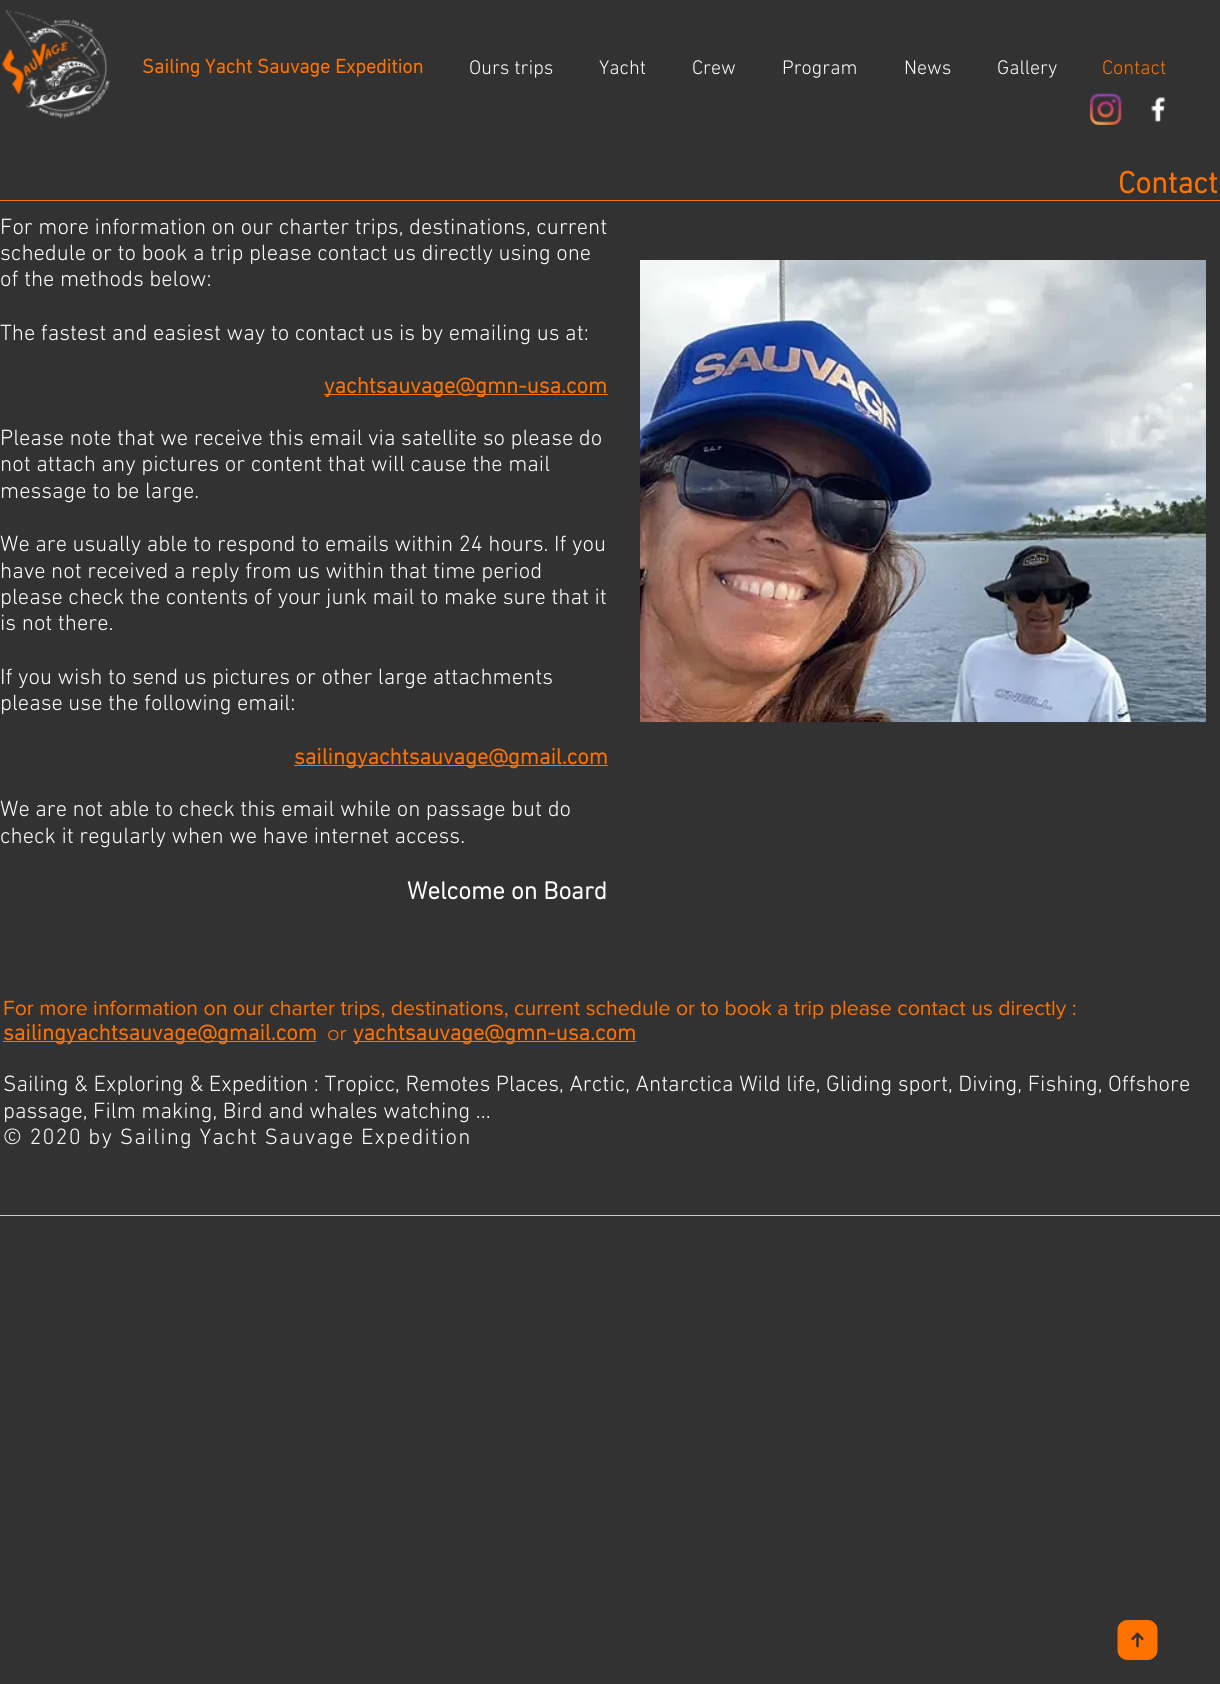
import math
import cairo

surface = cairo.ImageSurface(cairo.FORMAT_RGB24, 1220, 1684)
ctx = cairo.Context(surface)
options = cairo.FontOptions()
options.set_hint_metrics(cairo.HINT_METRICS_OFF)
options.set_hint_style(cairo.HINT_STYLE_NONE)
ctx.set_font_options(options)
ctx.set_miter_limit(4)


def spaced_text(x, y, s, letter, word):
    ctx.move_to(x, y)
    for ch in s:
        ctx.show_text(ch)
        ctx.rel_move_to(letter + word * (ch == ' '), 0)


def picture(path, x, y, w, h):
    ctx.save()
    ctx.set_source_surface(cairo.ImageSurface.create_from_png(path), x, y)
    ctx.rectangle(x, y, w, h)
    ctx.fill()
    ctx.restore()


ctx.set_source_rgb(0.196, 0.196, 0.196)
ctx.paint()
picture("img1.png", 2, 10, 108, 109)
ctx.select_font_face("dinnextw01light", cairo.FONT_SLANT_NORMAL, cairo.FONT_WEIGHT_BOLD)
ctx.set_font_size(20)
ctx.set_source_rgb(1, 0.447, 0)
ctx.move_to(142, 73)
ctx.show_text("Sailing Yacht Sauvage Expedition")
ctx.select_font_face("dinnextw01light Light")
ctx.set_source_rgb(1, 1, 1)
ctx.move_to(469, 74)
ctx.show_text("Ours trips")
ctx.move_to(599, 74)
ctx.show_text("Yacht")
ctx.move_to(692, 74)
ctx.show_text("Crew")
ctx.move_to(782, 74)
ctx.show_text("Program")
ctx.move_to(904, 74)
ctx.show_text("News")
ctx.move_to(997, 74)
ctx.show_text("Gallery")
ctx.set_source_rgb(1, 0.447, 0)
ctx.move_to(1102, 74)
ctx.show_text("Contact")
picture("img2.png", 1090, 93, 32, 32)
picture("img3.png", 1151, 97, 15, 25)
ctx.select_font_face("dinnextw01light", cairo.FONT_SLANT_NORMAL, cairo.FONT_WEIGHT_BOLD)
ctx.set_font_size(31)
ctx.move_to(1118, 193)
ctx.show_text("Contact")
ctx.rectangle(0, 200, 1220, 1)
ctx.fill()
ctx.select_font_face("dinnextw01light Light")
ctx.set_font_size(22.5)
ctx.set_source_rgb(1, 1, 1)
ctx.move_to(0, 234)
ctx.show_text("For more information on our charter trips, destinations, current")
ctx.move_to(0, 260)
ctx.show_text("schedule or to book a trip please contact us directly using one")
ctx.move_to(0, 286)
ctx.show_text("of the methods below:")
ctx.move_to(0, 340)
ctx.show_text("The fastest and easiest way to contact us is by emailing us at:")
ctx.set_source_rgb(1, 0.447, 0)
ctx.rectangle(324, 394, 284, 1)
ctx.fill()
ctx.select_font_face("dinnextw01light", cairo.FONT_SLANT_NORMAL, cairo.FONT_WEIGHT_BOLD)
ctx.move_to(324, 393)
ctx.show_text("yachtsauvage@gmn-usa.com")
ctx.select_font_face("dinnextw01light Light")
ctx.set_source_rgb(1, 1, 1)
ctx.move_to(0, 445)
ctx.show_text("Please note that we receive this email via satellite so please do")
ctx.move_to(0, 471)
ctx.show_text("not attach any pictures or content that will cause the mail")
ctx.move_to(0, 498)
ctx.show_text("message to be large.")
ctx.move_to(0, 551)
ctx.show_text("We are usually able to respond to emails within 24 hours. If you")
ctx.move_to(0, 578)
ctx.show_text("have not received a reply from us within that time period")
ctx.move_to(0, 604)
ctx.show_text("please check the contents of your junk mail to make sure that it")
ctx.move_to(0, 630)
ctx.show_text("is not there.")
ctx.move_to(0, 684)
ctx.show_text("If you wish to send us pictures or other large attachments")
ctx.move_to(0, 710)
ctx.show_text("please use the following email:")
ctx.set_source_rgb(1, 0.447, 0)
ctx.rectangle(294, 765, 314, 1)
ctx.fill()
ctx.select_font_face("dinnextw01light", cairo.FONT_SLANT_NORMAL, cairo.FONT_WEIGHT_BOLD)
ctx.move_to(294, 764)
ctx.show_text("sailingyachtsauvage@gmail.com")
ctx.select_font_face("dinnextw01light Light")
ctx.set_source_rgb(1, 1, 1)
ctx.move_to(0, 816)
ctx.show_text("We are not able to check this email while on passage but do")
ctx.move_to(0, 843)
ctx.show_text("check it regularly when we have internet access.")
ctx.select_font_face("dinnextw01light", cairo.FONT_SLANT_NORMAL, cairo.FONT_WEIGHT_BOLD)
ctx.set_font_size(25)
ctx.move_to(407, 899)
ctx.show_text("Welcome on Board")
picture("img4.png", 640, 260, 566, 463)
ctx.select_font_face("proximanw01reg")
ctx.set_font_size(21.25)
ctx.set_source_rgb(1, 0.447, 0)
ctx.move_to(3, 1015)
ctx.show_text("For more information on our charter trips, destinations, current schedule or to book a trip please contact us directly :")
ctx.rectangle(3, 1041, 313, 1)
ctx.fill()
ctx.select_font_face("dinnextw01light", cairo.FONT_SLANT_NORMAL, cairo.FONT_WEIGHT_BOLD)
ctx.set_font_size(22.5)
ctx.move_to(3, 1040)
ctx.show_text("sailingyachtsauvage@gmail.com")
ctx.select_font_face("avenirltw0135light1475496 Light")
ctx.set_font_size(21.25)
ctx.move_to(327, 1040)
ctx.show_text("or")
ctx.rectangle(353, 1041, 283, 1)
ctx.fill()
ctx.select_font_face("dinnextw01light", cairo.FONT_SLANT_NORMAL, cairo.FONT_WEIGHT_BOLD)
ctx.set_font_size(22.5)
ctx.move_to(353, 1040)
ctx.show_text("yachtsauvage@gmn-usa.com")
ctx.select_font_face("dinnextw01light Light")
ctx.set_source_rgb(1, 1, 1)
ctx.move_to(3, 1091)
ctx.show_text("Sailing & Exploring & Expedition : Tropicc, Remotes Places, Arctic, Antarctica Wild life, Gliding sport, Diving, Fishing, Offshore")
ctx.move_to(3, 1118)
ctx.show_text("passage, Film making, Bird and whales watching ...")
spaced_text(3, 1144, "© 2020 by Sailing Yacht Sauvage Expedition", 1.1, 0)
ctx.set_source_rgb(0.8, 0.8, 0.8)
ctx.rectangle(0, 1215, 1220, 1)
ctx.fill()
picture("img5.png", 1117, 1620, 41, 40)
surface.write_to_png("page.png")
